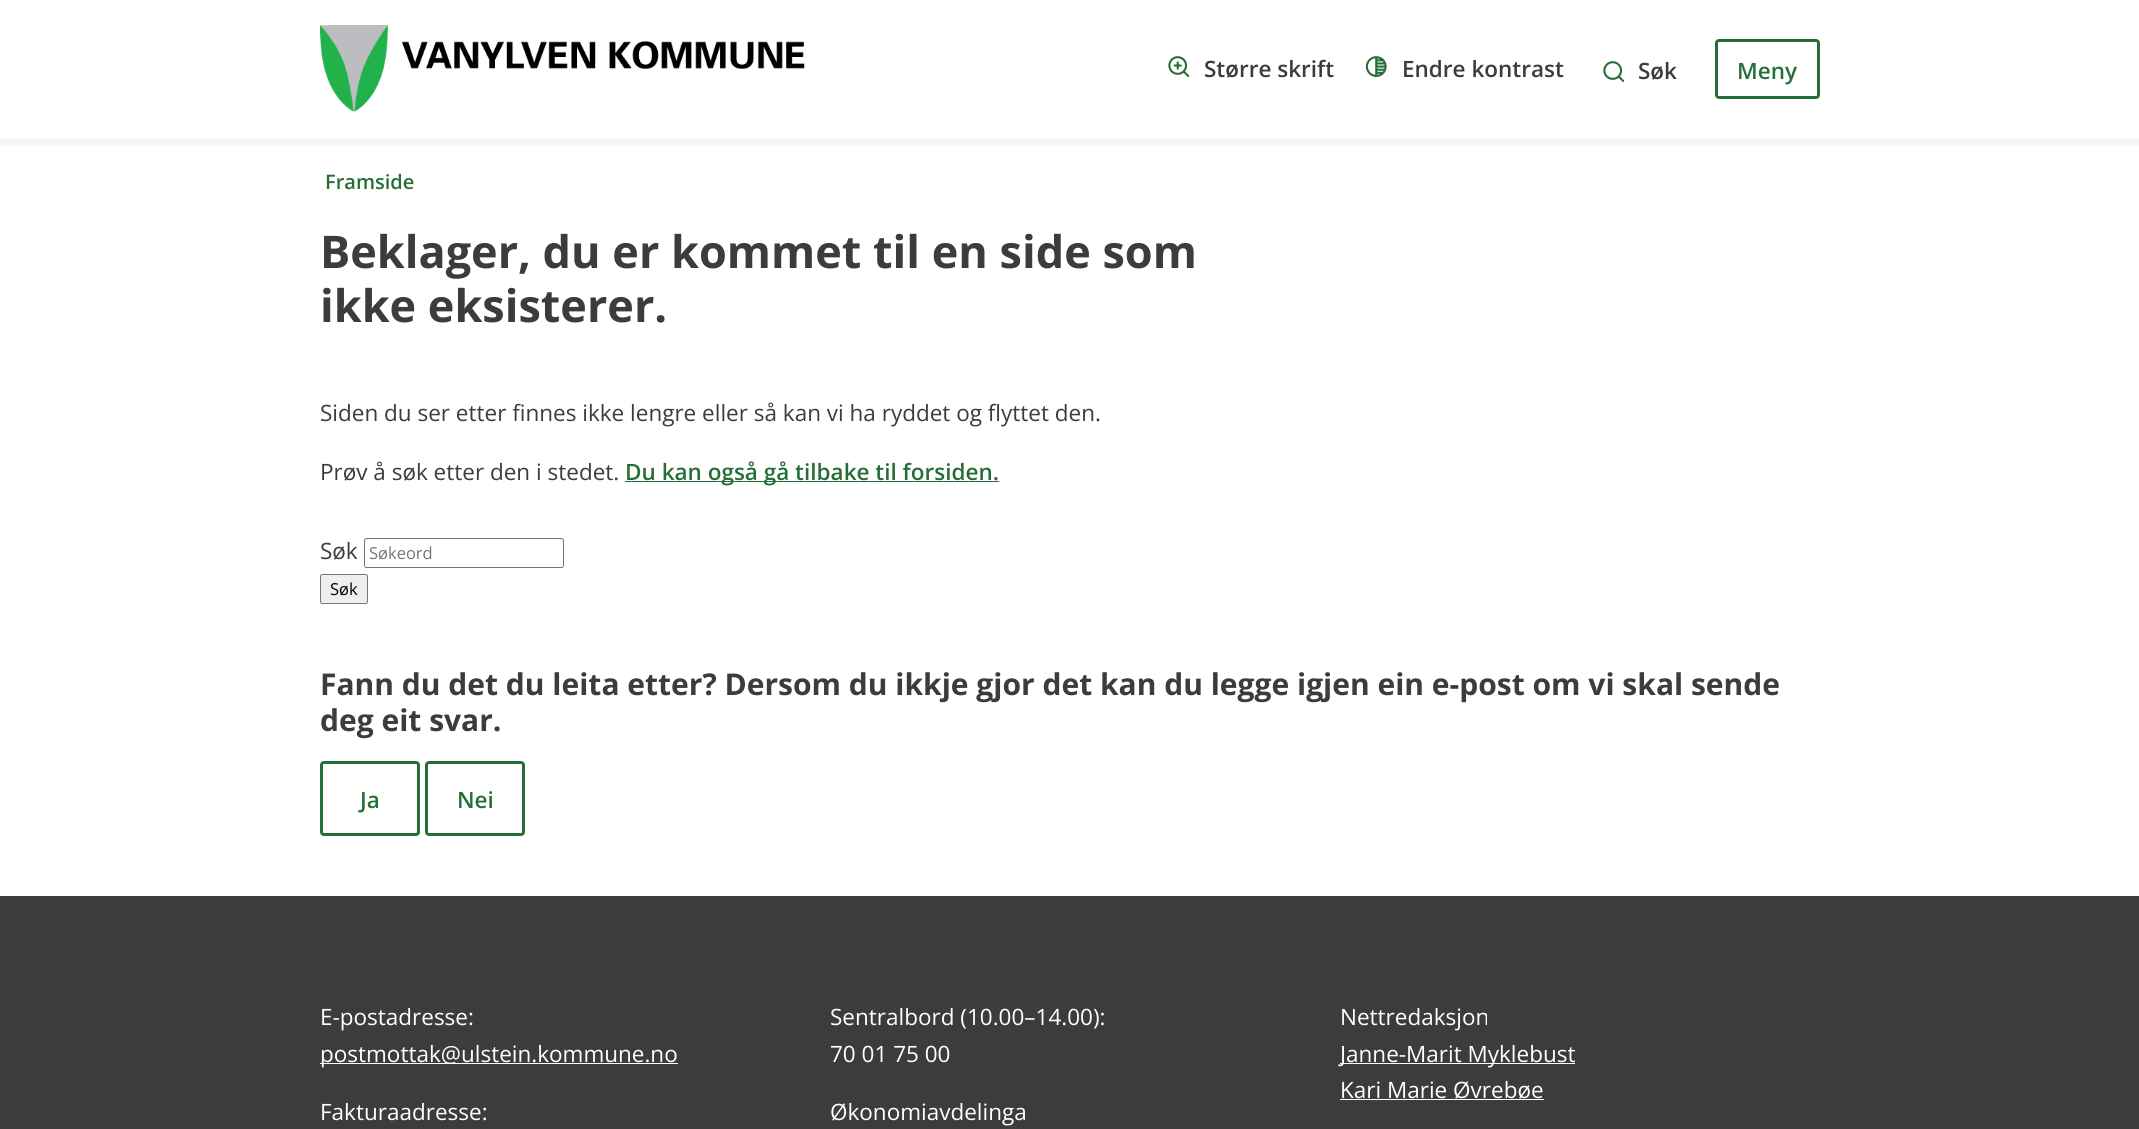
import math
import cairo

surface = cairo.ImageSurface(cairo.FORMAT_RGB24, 2139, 1129)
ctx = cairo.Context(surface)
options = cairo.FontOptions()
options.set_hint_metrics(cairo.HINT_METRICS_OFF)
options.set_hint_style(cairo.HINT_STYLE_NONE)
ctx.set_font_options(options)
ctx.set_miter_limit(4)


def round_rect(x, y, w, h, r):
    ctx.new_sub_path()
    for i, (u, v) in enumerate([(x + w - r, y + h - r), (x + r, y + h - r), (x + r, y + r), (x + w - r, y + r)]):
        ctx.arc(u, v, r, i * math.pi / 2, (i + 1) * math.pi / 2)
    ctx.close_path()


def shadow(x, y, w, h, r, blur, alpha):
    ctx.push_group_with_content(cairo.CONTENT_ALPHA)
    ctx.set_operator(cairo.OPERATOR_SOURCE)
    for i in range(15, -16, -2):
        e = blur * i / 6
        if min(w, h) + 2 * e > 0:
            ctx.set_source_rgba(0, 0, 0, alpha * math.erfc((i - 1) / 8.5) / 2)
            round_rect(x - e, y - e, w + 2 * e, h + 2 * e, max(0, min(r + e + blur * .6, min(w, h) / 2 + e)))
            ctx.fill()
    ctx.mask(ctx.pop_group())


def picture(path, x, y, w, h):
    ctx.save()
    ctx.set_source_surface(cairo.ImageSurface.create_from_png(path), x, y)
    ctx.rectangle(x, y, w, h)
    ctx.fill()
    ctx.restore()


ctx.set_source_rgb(1, 1, 1)
ctx.paint()
ctx.save()
ctx.rectangle(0, 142, 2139, 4)
ctx.clip()
ctx.set_source_rgb(0, 0, 0)
shadow(0, 1, 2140, 142, 0, 3, 0.1)
ctx.restore()
ctx.set_source_rgb(0.961, 0.961, 0.961)
ctx.rectangle(0, 138, 2139, 4)
ctx.fill()
picture("img1.png", 320, 25, 485, 87)
picture("img2.png", 1168, 56, 22, 21)
ctx.select_font_face("Open Sans SemiBold")
ctx.set_font_size(22.5)
ctx.set_source_rgb(0.235, 0.235, 0.235)
ctx.move_to(1204, 77)
ctx.show_text("Større skrift")
picture("img3.png", 1365, 56, 22, 21)
ctx.move_to(1402, 77)
ctx.show_text("Endre kontrast")
picture("img4.png", 1603, 61, 22, 21)
ctx.move_to(1638, 79)
ctx.show_text("Søk")
round_rect(1716.5, 40.5, 102, 57, 2.5)
ctx.set_source_rgb(0.145, 0.431, 0.212)
ctx.set_line_width(3)
ctx.stroke()
ctx.move_to(1737, 79)
ctx.show_text("Meny")
ctx.set_font_size(20)
ctx.move_to(325, 189)
ctx.show_text("Framside")
ctx.select_font_face("Open Sans", cairo.FONT_SLANT_NORMAL, cairo.FONT_WEIGHT_BOLD)
ctx.set_font_size(45)
ctx.set_source_rgb(0.235, 0.235, 0.235)
ctx.move_to(320, 268)
ctx.show_text("Beklager, du er kommet til en side som")
ctx.move_to(320, 322)
ctx.show_text("ikke eksisterer.")
ctx.select_font_face("Open Sans")
ctx.set_font_size(22.5)
ctx.move_to(320, 421)
ctx.show_text("Siden du ser etter finnes ikke lengre eller så kan vi ha ryddet og flyttet den.")
ctx.move_to(320, 480)
ctx.show_text("Prøv å søk etter den i stedet.")
ctx.set_source_rgb(0.145, 0.431, 0.212)
ctx.rectangle(625, 481, 374, 1)
ctx.fill()
ctx.select_font_face("Open Sans SemiBold")
ctx.move_to(625, 480)
ctx.show_text("Du kan også gå tilbake til forsiden.")
ctx.select_font_face("Open Sans")
ctx.set_source_rgb(0.235, 0.235, 0.235)
ctx.move_to(320, 559)
ctx.show_text("Søk")
round_rect(364.5, 538.5, 199, 29, 2)
ctx.set_source_rgb(0.463, 0.463, 0.463)
ctx.set_line_width(1)
ctx.stroke()
ctx.set_font_size(16.5)
ctx.set_source_rgb(0.459, 0.459, 0.459)
ctx.move_to(369, 559)
ctx.show_text("Søkeord")
ctx.set_source_rgb(0.937, 0.937, 0.937)
round_rect(320.5, 574.5, 47, 29, 2)
ctx.fill_preserve()
ctx.set_source_rgb(0.463, 0.463, 0.463)
ctx.stroke()
ctx.set_source_rgb(0, 0, 0)
ctx.move_to(330, 595)
ctx.show_text("Søk")
ctx.select_font_face("Open Sans", cairo.FONT_SLANT_NORMAL, cairo.FONT_WEIGHT_BOLD)
ctx.set_font_size(30)
ctx.set_source_rgb(0.235, 0.235, 0.235)
ctx.move_to(320, 695)
ctx.show_text("Fann du det du leita etter? Dersom du ikkje gjor det kan du legge igjen ein e-post om vi skal sende")
ctx.move_to(320, 731)
ctx.show_text("deg eit svar.")
round_rect(321.5, 762.5, 97, 72, 2.5)
ctx.set_source_rgb(0.145, 0.431, 0.212)
ctx.set_line_width(3)
ctx.stroke()
ctx.select_font_face("Open Sans SemiBold")
ctx.set_font_size(22.5)
ctx.move_to(360, 808)
ctx.show_text("Ja")
round_rect(426.5, 762.5, 97, 72, 2.5)
ctx.stroke()
ctx.move_to(457, 808)
ctx.show_text("Nei")
ctx.set_source_rgb(0.235, 0.235, 0.235)
ctx.rectangle(0, 896, 2139, 233)
ctx.fill()
ctx.select_font_face("Open Sans")
ctx.set_source_rgb(1, 1, 1)
ctx.move_to(320, 1025)
ctx.show_text("E-postadresse:")
ctx.rectangle(320, 1063, 358, 1)
ctx.fill()
ctx.move_to(320, 1062)
ctx.show_text("postmottak@ulstein.kommune.no")
ctx.move_to(320, 1120)
ctx.show_text("Fakturaadresse:")
ctx.move_to(830, 1025)
ctx.show_text("Sentralbord (10.00–14.00):")
ctx.move_to(830, 1062)
ctx.show_text("70 01 75 00")
ctx.move_to(830, 1120)
ctx.show_text("Økonomiavdelinga")
ctx.move_to(1340, 1025)
ctx.show_text("Nettredaksjon")
ctx.rectangle(1340, 1063, 235, 1)
ctx.fill()
ctx.move_to(1340, 1062)
ctx.show_text("Janne-Marit Myklebust")
ctx.move_to(1340, 1098)
ctx.show_text("Kari Marie Øvrebøe")
ctx.rectangle(1340, 1099, 204, 1)
ctx.fill()
surface.write_to_png("page.png")
